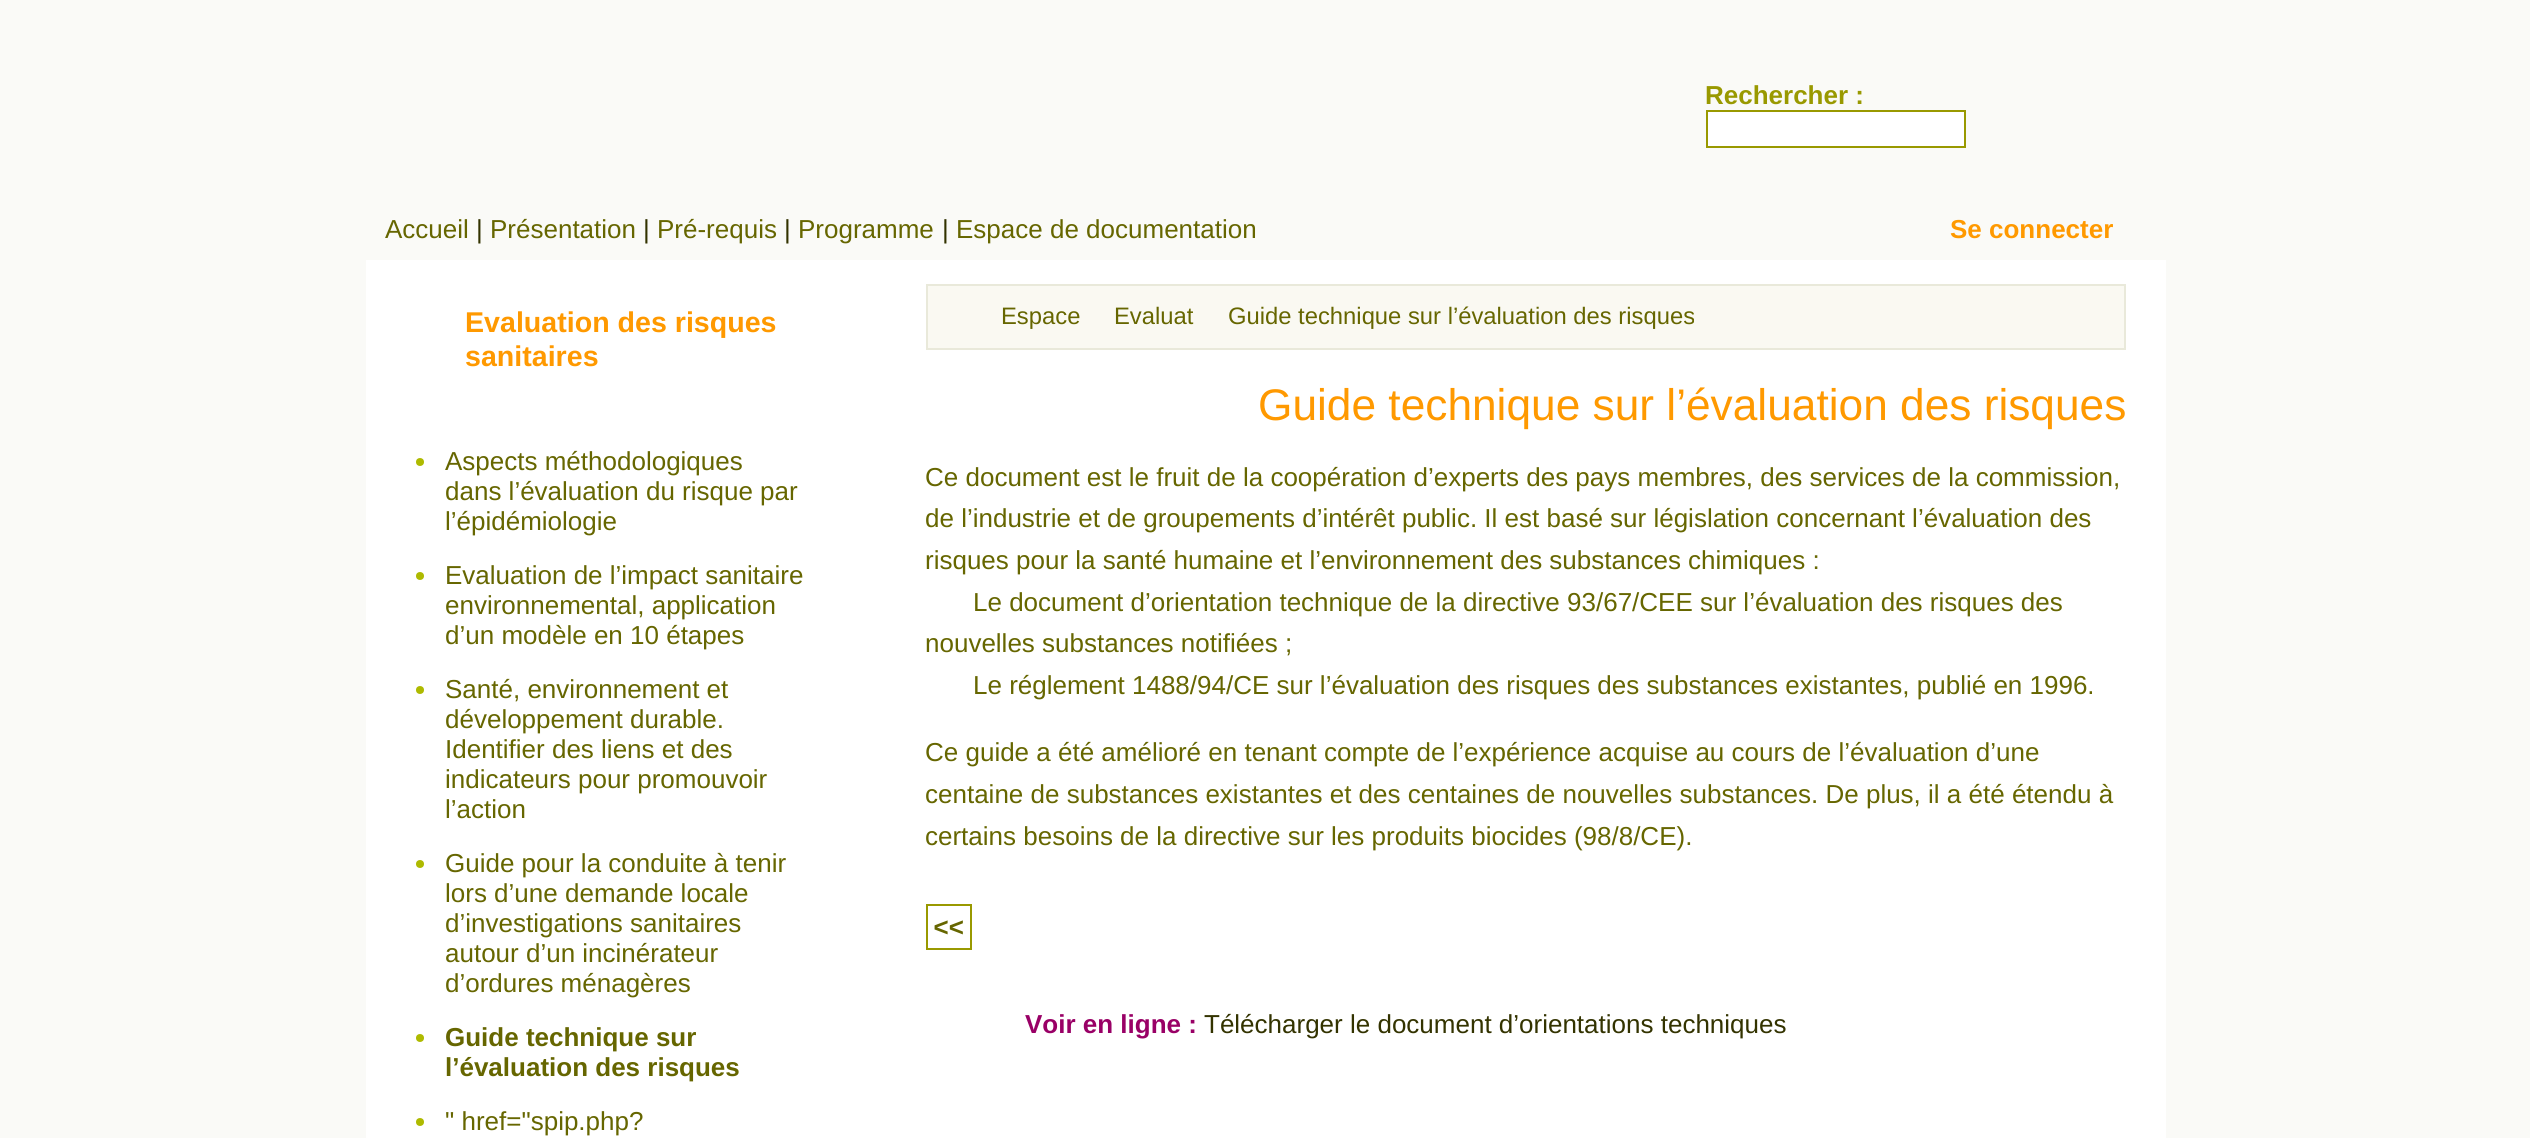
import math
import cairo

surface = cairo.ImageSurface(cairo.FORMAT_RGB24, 2530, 1138)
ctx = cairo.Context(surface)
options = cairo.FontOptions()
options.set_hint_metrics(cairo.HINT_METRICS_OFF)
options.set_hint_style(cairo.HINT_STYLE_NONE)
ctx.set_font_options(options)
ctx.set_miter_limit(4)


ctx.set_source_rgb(0.98, 0.98, 0.965)
ctx.paint()
ctx.set_source_rgb(1, 1, 1)
ctx.rectangle(366, 260, 1800, 878)
ctx.fill()
ctx.select_font_face("Liberation Sans", cairo.FONT_SLANT_NORMAL, cairo.FONT_WEIGHT_BOLD)
ctx.set_font_size(26)
ctx.set_source_rgb(0.6, 0.6, 0)
ctx.move_to(1705, 104)
ctx.show_text("Rechercher :")
ctx.set_source_rgb(1, 1, 1)
ctx.rectangle(1707, 111, 258, 36)
ctx.fill_preserve()
ctx.set_source_rgb(0.6, 0.6, 0)
ctx.stroke()
ctx.select_font_face("Liberation Sans")
ctx.set_source_rgb(0.4, 0.4, 0)
ctx.move_to(385, 238)
ctx.show_text("Accueil")
ctx.set_source_rgb(0.2, 0.2, 0)
ctx.move_to(476, 238)
ctx.show_text("|")
ctx.set_source_rgb(0.4, 0.4, 0)
ctx.move_to(490, 238)
ctx.show_text("Présentation")
ctx.set_source_rgb(0.2, 0.2, 0)
ctx.move_to(643, 238)
ctx.show_text("|")
ctx.set_source_rgb(0.4, 0.4, 0)
ctx.move_to(657, 238)
ctx.show_text("Pré-requis")
ctx.set_source_rgb(0.2, 0.2, 0)
ctx.move_to(784, 238)
ctx.show_text("|")
ctx.set_source_rgb(0.4, 0.4, 0)
ctx.move_to(798, 238)
ctx.show_text("Programme")
ctx.set_source_rgb(0.2, 0.2, 0)
ctx.move_to(942, 238)
ctx.show_text("|")
ctx.set_source_rgb(0.4, 0.4, 0)
ctx.move_to(956, 238)
ctx.show_text("Espace de documentation")
ctx.select_font_face("Liberation Sans", cairo.FONT_SLANT_NORMAL, cairo.FONT_WEIGHT_BOLD)
ctx.set_source_rgb(1, 0.6, 0)
ctx.move_to(1950, 238)
ctx.show_text("Se connecter")
ctx.set_font_size(28.6)
ctx.move_to(465, 332)
ctx.show_text("Evaluation des risques")
ctx.move_to(465, 366)
ctx.show_text("sanitaires")
ctx.set_source_rgb(0.682, 0.729, 0)
ctx.new_path()
ctx.arc(420, 462, 4, 0, 2 * math.pi)
ctx.fill()
ctx.select_font_face("Liberation Sans")
ctx.set_font_size(26)
ctx.set_source_rgb(0.4, 0.4, 0)
ctx.move_to(445, 470)
ctx.show_text("Aspects méthodologiques")
ctx.move_to(445, 500)
ctx.show_text("dans l’évaluation du risque par")
ctx.move_to(445, 530)
ctx.show_text("l’épidémiologie")
ctx.set_source_rgb(0.682, 0.729, 0)
ctx.new_path()
ctx.arc(420, 576, 4, 0, 2 * math.pi)
ctx.fill()
ctx.set_source_rgb(0.4, 0.4, 0)
ctx.move_to(445, 584)
ctx.show_text("Evaluation de l’impact sanitaire")
ctx.move_to(445, 614)
ctx.show_text("environnemental, application")
ctx.move_to(445, 644)
ctx.show_text("d’un modèle en 10 étapes")
ctx.set_source_rgb(0.682, 0.729, 0)
ctx.new_path()
ctx.arc(420, 690, 4, 0, 2 * math.pi)
ctx.fill()
ctx.set_source_rgb(0.4, 0.4, 0)
ctx.move_to(445, 698)
ctx.show_text("Santé, environnement et")
ctx.move_to(445, 728)
ctx.show_text("développement durable.")
ctx.move_to(445, 758)
ctx.show_text("Identifier des liens et des")
ctx.move_to(445, 788)
ctx.show_text("indicateurs pour promouvoir")
ctx.move_to(445, 818)
ctx.show_text("l’action")
ctx.set_source_rgb(0.682, 0.729, 0)
ctx.new_path()
ctx.arc(420, 864, 4, 0, 2 * math.pi)
ctx.fill()
ctx.set_source_rgb(0.4, 0.4, 0)
ctx.move_to(445, 872)
ctx.show_text("Guide pour la conduite à tenir")
ctx.move_to(445, 902)
ctx.show_text("lors d’une demande locale")
ctx.move_to(445, 932)
ctx.show_text("d’investigations sanitaires")
ctx.move_to(445, 962)
ctx.show_text("autour d’un incinérateur")
ctx.move_to(445, 992)
ctx.show_text("d’ordures ménagères")
ctx.set_source_rgb(0.682, 0.729, 0)
ctx.new_path()
ctx.arc(420, 1038, 4, 0, 2 * math.pi)
ctx.fill()
ctx.select_font_face("Liberation Sans", cairo.FONT_SLANT_NORMAL, cairo.FONT_WEIGHT_BOLD)
ctx.set_source_rgb(0.4, 0.4, 0)
ctx.move_to(445, 1046)
ctx.show_text("Guide technique sur")
ctx.move_to(445, 1076)
ctx.show_text("l’évaluation des risques")
ctx.set_source_rgb(0.682, 0.729, 0)
ctx.new_path()
ctx.arc(420, 1122, 4, 0, 2 * math.pi)
ctx.fill()
ctx.select_font_face("Liberation Sans")
ctx.set_source_rgb(0.4, 0.4, 0)
ctx.move_to(445, 1130)
ctx.show_text("\" href=\"spip.php?")
ctx.set_source_rgb(0.98, 0.976, 0.949)
ctx.rectangle(927, 285, 1198, 64)
ctx.fill_preserve()
ctx.set_source_rgb(0.914, 0.914, 0.855)
ctx.stroke()
ctx.set_font_size(23.8)
ctx.set_source_rgb(0.4, 0.4, 0)
ctx.move_to(1001, 324)
ctx.show_text("Espace")
ctx.move_to(1114, 324)
ctx.show_text("Evaluat")
ctx.save()
ctx.rectangle(1228, 296, 466, 42)
ctx.clip()
ctx.move_to(1228, 324)
ctx.show_text("Guide technique sur l’évaluation des risques")
ctx.restore()
ctx.set_font_size(44.25)
ctx.set_source_rgb(1, 0.6, 0)
ctx.move_to(1258, 420)
ctx.show_text("Guide technique sur l’évaluation des risques")
ctx.set_font_size(26)
ctx.set_source_rgb(0.4, 0.4, 0)
ctx.move_to(925, 486)
ctx.show_text("Ce document est le fruit de la coopération d’experts des pays membres, des services de la commission,")
ctx.move_to(925, 527)
ctx.show_text("de l’industrie et de groupements d’intérêt public. Il est basé sur législation concernant l’évaluation des")
ctx.move_to(925, 569)
ctx.show_text("risques pour la santé humaine et l’environnement des substances chimiques :")
ctx.move_to(973, 611)
ctx.show_text("Le document d’orientation technique de la directive 93/67/CEE sur l’évaluation des risques des")
ctx.move_to(925, 652)
ctx.show_text("nouvelles substances notifiées ;")
ctx.move_to(973, 694)
ctx.show_text("Le réglement 1488/94/CE sur l’évaluation des risques des substances existantes, publié en 1996.")
ctx.move_to(925, 761)
ctx.show_text("Ce guide a été amélioré en tenant compte de l’expérience acquise au cours de l’évaluation d’une")
ctx.move_to(925, 803)
ctx.show_text("centaine de substances existantes et des centaines de nouvelles substances. De plus, il a été étendu à")
ctx.move_to(925, 845)
ctx.show_text("certains besoins de la directive sur les produits biocides (98/8/CE).")
ctx.rectangle(927, 905, 44, 44)
ctx.set_source_rgb(0.6, 0.6, 0)
ctx.stroke()
ctx.select_font_face("Liberation Sans", cairo.FONT_SLANT_ITALIC, cairo.FONT_WEIGHT_BOLD)
ctx.set_source_rgb(0.4, 0.4, 0)
ctx.move_to(933, 936)
ctx.show_text("<<")
ctx.select_font_face("Liberation Sans", cairo.FONT_SLANT_NORMAL, cairo.FONT_WEIGHT_BOLD)
ctx.set_source_rgb(0.6, 0, 0.4)
ctx.move_to(1025, 1033)
ctx.show_text("Voir en ligne :")
ctx.select_font_face("Liberation Sans")
ctx.set_source_rgb(0.2, 0.2, 0)
ctx.move_to(1204, 1033)
ctx.show_text("Télécharger le document d’orientations techniques")
surface.write_to_png("page.png")
